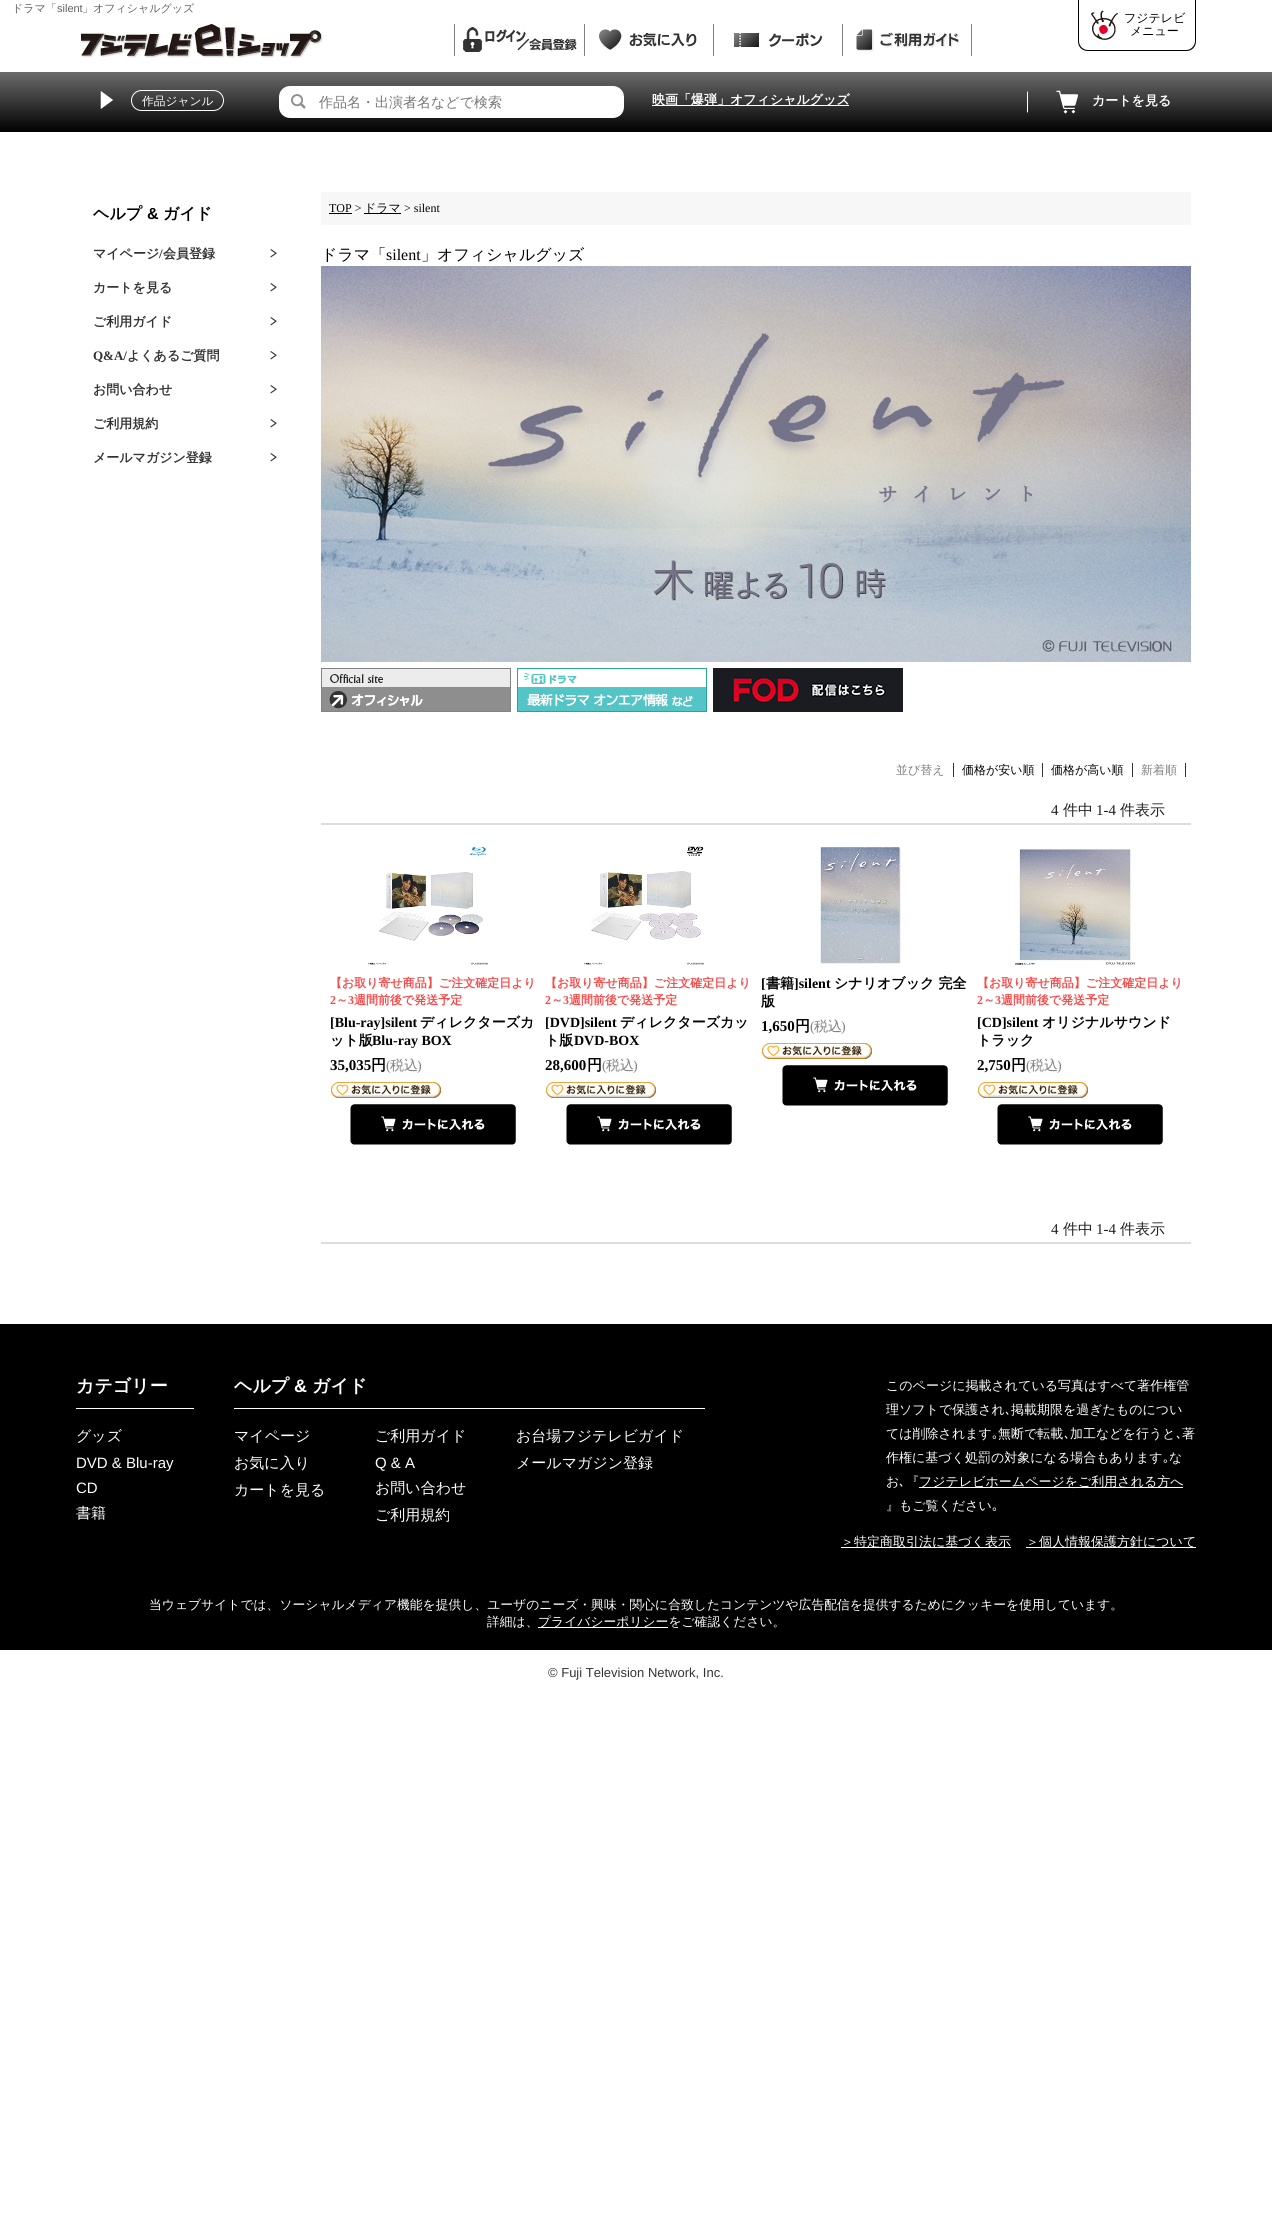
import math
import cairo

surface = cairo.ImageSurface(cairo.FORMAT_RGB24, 1272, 2233)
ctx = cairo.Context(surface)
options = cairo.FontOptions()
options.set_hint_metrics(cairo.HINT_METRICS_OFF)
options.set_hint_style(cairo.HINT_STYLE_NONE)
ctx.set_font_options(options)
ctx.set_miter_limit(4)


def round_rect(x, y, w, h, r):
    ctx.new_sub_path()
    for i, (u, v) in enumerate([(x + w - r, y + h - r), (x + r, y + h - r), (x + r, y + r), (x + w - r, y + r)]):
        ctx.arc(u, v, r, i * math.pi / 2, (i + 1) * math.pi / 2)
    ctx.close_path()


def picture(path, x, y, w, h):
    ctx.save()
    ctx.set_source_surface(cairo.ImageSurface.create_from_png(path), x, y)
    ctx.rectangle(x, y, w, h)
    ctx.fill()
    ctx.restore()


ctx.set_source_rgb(1, 1, 1)
ctx.paint()
ctx.select_font_face("WenQuanYi Zen Hei Medium")
ctx.set_font_size(11)
ctx.set_source_rgb(0.376, 0.376, 0.376)
ctx.move_to(12, 12)
ctx.show_text("ドラマ「")
ctx.select_font_face("Liberation Sans")
ctx.move_to(57, 12)
ctx.show_text("silent")
ctx.select_font_face("WenQuanYi Zen Hei Medium")
ctx.move_to(82, 12)
ctx.show_text("」オフィシャルグッズ")
picture("img1.png", 81, 24, 242, 34)
ctx.set_source_rgb(0.502, 0.502, 0.502)
ctx.rectangle(454, 24, 1, 32)
ctx.fill()
picture("img2.png", 463, 27, 114, 25)
ctx.rectangle(584, 24, 1, 32)
ctx.fill()
picture("img3.png", 599, 29, 98, 21)
ctx.rectangle(713, 24, 1, 32)
ctx.fill()
picture("img4.png", 734, 33, 89, 14)
ctx.rectangle(971, 24, 1, 32)
ctx.fill()
ctx.rectangle(842, 24, 1, 32)
ctx.fill()
picture("img5.png", 856, 29, 104, 23)
ctx.set_source_rgb(0, 0, 0)
ctx.set_fill_rule(cairo.FILL_RULE_EVEN_ODD)
ctx.new_path()
ctx.move_to(1078, 0)
ctx.line_to(1196, 0)
ctx.line_to(1196, 41)
ctx.curve_to(1196, 47, 1192, 51, 1186, 51)
ctx.line_to(1088, 51)
ctx.curve_to(1082, 51, 1078, 47, 1078, 41)
ctx.close_path()
ctx.move_to(1079, 0)
ctx.line_to(1195, 0)
ctx.line_to(1195, 41)
ctx.curve_to(1195, 46, 1191, 50, 1186, 50)
ctx.line_to(1088, 50)
ctx.curve_to(1083, 50, 1079, 46, 1079, 41)
ctx.close_path()
ctx.fill()
picture("img6.png", 1091, 10, 28, 30)
ctx.set_font_size(12)
ctx.move_to(1124, 22)
ctx.show_text("フジテレビ")
ctx.move_to(1130, 35)
ctx.show_text("メニュー")
gradient = cairo.LinearGradient(636, 72, 636, 132)
gradient.add_color_stop_rgba(0, 0.424, 0.424, 0.424, 1)
gradient.add_color_stop_rgba(1, 0, 0, 0, 1)
ctx.set_source(gradient)
ctx.rectangle(0, 72, 1272, 60)
ctx.fill()
picture("img7.png", 100, 91, 14, 18)
round_rect(131.5, 90.5, 92, 20, 10)
ctx.set_source_rgb(1, 1, 1)
ctx.set_line_width(1)
ctx.stroke()
ctx.set_font_size(11.75)
ctx.move_to(142, 105)
ctx.show_text("作品ジャンル")
round_rect(279, 86, 345, 32, 11)
ctx.fill()
picture("img8.png", 291, 94, 15, 15)
ctx.set_font_size(14)
ctx.set_source_rgb(0.459, 0.459, 0.459)
ctx.move_to(319, 107)
ctx.show_text("作品名・出演者名などで検索")
ctx.set_source_rgb(1, 1, 1)
ctx.rectangle(652, 105, 197, 1)
ctx.fill()
ctx.select_font_face("WenQuanYi Zen Hei", cairo.FONT_SLANT_NORMAL, cairo.FONT_WEIGHT_BOLD)
ctx.set_font_size(13)
ctx.move_to(652, 104)
ctx.show_text("映画「爆弾」オフィシャルグッズ")
picture("img9.png", 1027, 91, 1, 22)
picture("img10.png", 1056, 90, 22, 24)
ctx.move_to(1092, 105)
ctx.show_text("カートを見る")
ctx.set_font_size(16)
ctx.set_source_rgb(0, 0, 0)
ctx.move_to(93, 219)
ctx.show_text("ヘルプ")
ctx.select_font_face("Liberation Sans", cairo.FONT_SLANT_NORMAL, cairo.FONT_WEIGHT_BOLD)
ctx.move_to(147, 219)
ctx.show_text("&")
ctx.select_font_face("WenQuanYi Zen Hei", cairo.FONT_SLANT_NORMAL, cairo.FONT_WEIGHT_BOLD)
ctx.move_to(163, 219)
ctx.show_text("ガイド")
picture("img11.png", 270, 249, 7, 9)
ctx.set_font_size(13)
ctx.set_source_rgb(0.2, 0.2, 0.2)
ctx.move_to(93, 258)
ctx.show_text("マイページ 会員登録")
ctx.select_font_face("Liberation Serif", cairo.FONT_SLANT_NORMAL, cairo.FONT_WEIGHT_BOLD)
ctx.move_to(159, 258)
ctx.show_text("/")
picture("img11.png", 270, 283, 7, 9)
ctx.select_font_face("WenQuanYi Zen Hei", cairo.FONT_SLANT_NORMAL, cairo.FONT_WEIGHT_BOLD)
ctx.move_to(93, 292)
ctx.show_text("カートを見る")
picture("img11.png", 270, 317, 7, 9)
ctx.move_to(93, 326)
ctx.show_text("ご利用ガイド")
picture("img11.png", 270, 351, 7, 9)
ctx.select_font_face("Liberation Serif", cairo.FONT_SLANT_NORMAL, cairo.FONT_WEIGHT_BOLD)
ctx.move_to(93, 360)
ctx.show_text("Q&A/")
ctx.select_font_face("WenQuanYi Zen Hei", cairo.FONT_SLANT_NORMAL, cairo.FONT_WEIGHT_BOLD)
ctx.move_to(127, 360)
ctx.show_text("よくあるご質問")
picture("img11.png", 270, 385, 7, 9)
ctx.move_to(93, 394)
ctx.show_text("お問い合わせ")
picture("img11.png", 270, 419, 7, 9)
ctx.move_to(93, 428)
ctx.show_text("ご利用規約")
picture("img11.png", 270, 453, 7, 9)
ctx.move_to(93, 462)
ctx.show_text("メールマガジン登録")
ctx.set_source_rgb(0.965, 0.965, 0.965)
ctx.rectangle(321, 192, 870, 33)
ctx.fill()
ctx.select_font_face("Liberation Serif")
ctx.set_font_size(12)
ctx.set_source_rgb(0, 0, 0)
ctx.move_to(329, 212)
ctx.show_text("TOP >")
ctx.rectangle(329, 213, 23, 1)
ctx.fill()
ctx.rectangle(364, 213, 37, 1)
ctx.fill()
ctx.select_font_face("WenQuanYi Zen Hei Medium")
ctx.move_to(364, 212)
ctx.show_text("ドラマ")
ctx.select_font_face("Liberation Serif")
ctx.move_to(404, 212)
ctx.show_text("> silent")
ctx.select_font_face("WenQuanYi Zen Hei Medium")
ctx.set_font_size(16)
ctx.move_to(321, 260)
ctx.show_text("ドラマ「")
ctx.select_font_face("Liberation Serif")
ctx.move_to(386, 260)
ctx.show_text("silent")
ctx.select_font_face("WenQuanYi Zen Hei Medium")
ctx.move_to(421, 260)
ctx.show_text("」オフィシャルグッズ")
picture("img12.png", 321, 266, 870, 396)
picture("img13.png", 321, 668, 190, 44)
picture("img14.png", 517, 668, 190, 44)
picture("img15.png", 713, 668, 190, 44)
ctx.set_font_size(12)
ctx.set_source_rgb(0.502, 0.502, 0.502)
ctx.move_to(896, 774)
ctx.show_text("並び替え")
ctx.set_source_rgb(0.2, 0.2, 0.2)
ctx.rectangle(953, 763, 1, 14)
ctx.fill()
ctx.set_source_rgb(0, 0, 0)
ctx.move_to(962, 774)
ctx.show_text("価格が安い順")
ctx.set_source_rgb(0.2, 0.2, 0.2)
ctx.rectangle(1042, 763, 1, 14)
ctx.fill()
ctx.set_source_rgb(0, 0, 0)
ctx.move_to(1051, 774)
ctx.show_text("価格が高い順")
ctx.set_source_rgb(0.2, 0.2, 0.2)
ctx.rectangle(1132, 763, 1, 14)
ctx.fill()
ctx.set_source_rgb(0.502, 0.502, 0.502)
ctx.move_to(1141, 774)
ctx.show_text("新着順")
ctx.set_source_rgb(0.2, 0.2, 0.2)
ctx.rectangle(1185, 763, 1, 14)
ctx.fill()
ctx.set_source_rgb(0.867, 0.867, 0.867)
ctx.rectangle(321, 823, 870, 2)
ctx.fill()
ctx.select_font_face("Liberation Serif")
ctx.set_font_size(15)
ctx.set_source_rgb(0.125, 0.125, 0.125)
ctx.move_to(1051, 815)
ctx.show_text("4")
ctx.select_font_face("WenQuanYi Zen Hei Medium")
ctx.move_to(1063, 815)
ctx.show_text("件中")
ctx.select_font_face("Liberation Serif")
ctx.move_to(1096, 815)
ctx.show_text("1-4")
ctx.select_font_face("WenQuanYi Zen Hei Medium")
ctx.move_to(1120, 815)
ctx.show_text("件表示")
picture("img16.png", 368, 846, 120, 119)
ctx.select_font_face("WenQuanYi Zen Hei", cairo.FONT_SLANT_NORMAL, cairo.FONT_WEIGHT_BOLD)
ctx.set_font_size(12)
ctx.set_source_rgb(0.965, 0.286, 0.286)
ctx.move_to(330, 987)
ctx.show_text("【お取り寄せ商品】ご注文確定日より")
ctx.select_font_face("Liberation Serif", cairo.FONT_SLANT_NORMAL, cairo.FONT_WEIGHT_BOLD)
ctx.move_to(330, 1004)
ctx.show_text("2")
ctx.select_font_face("WenQuanYi Zen Hei", cairo.FONT_SLANT_NORMAL, cairo.FONT_WEIGHT_BOLD)
ctx.move_to(336, 1004)
ctx.show_text("～")
ctx.select_font_face("Liberation Serif", cairo.FONT_SLANT_NORMAL, cairo.FONT_WEIGHT_BOLD)
ctx.move_to(348, 1004)
ctx.show_text("3")
ctx.select_font_face("WenQuanYi Zen Hei", cairo.FONT_SLANT_NORMAL, cairo.FONT_WEIGHT_BOLD)
ctx.move_to(354, 1004)
ctx.show_text("週間前後で発送予定")
ctx.select_font_face("Liberation Serif", cairo.FONT_SLANT_NORMAL, cairo.FONT_WEIGHT_BOLD)
ctx.set_font_size(14)
ctx.set_source_rgb(0, 0, 0)
ctx.move_to(330, 1027)
ctx.show_text("[Blu-ray]silent")
ctx.select_font_face("WenQuanYi Zen Hei", cairo.FONT_SLANT_NORMAL, cairo.FONT_WEIGHT_BOLD)
ctx.move_to(420, 1027)
ctx.show_text("ディレクターズカ")
ctx.move_to(330, 1045)
ctx.show_text("ット版")
ctx.select_font_face("Liberation Serif", cairo.FONT_SLANT_NORMAL, cairo.FONT_WEIGHT_BOLD)
ctx.move_to(372, 1045)
ctx.show_text("Blu-ray BOX")
ctx.set_font_size(15)
ctx.move_to(330, 1070)
ctx.show_text("35,035")
ctx.select_font_face("WenQuanYi Zen Hei", cairo.FONT_SLANT_NORMAL, cairo.FONT_WEIGHT_BOLD)
ctx.move_to(371, 1070)
ctx.show_text("円")
ctx.select_font_face("Liberation Serif")
ctx.set_font_size(14)
ctx.set_source_rgb(0.502, 0.502, 0.502)
ctx.move_to(386, 1070)
ctx.show_text("(")
ctx.select_font_face("WenQuanYi Zen Hei Medium")
ctx.move_to(390, 1070)
ctx.show_text("税込")
ctx.select_font_face("Liberation Serif")
ctx.move_to(417, 1070)
ctx.show_text(")")
picture("img17.png", 331, 1082, 110, 16)
picture("img18.png", 350, 1104, 166, 41)
picture("img19.png", 584, 846, 120, 119)
ctx.select_font_face("WenQuanYi Zen Hei", cairo.FONT_SLANT_NORMAL, cairo.FONT_WEIGHT_BOLD)
ctx.set_font_size(12)
ctx.set_source_rgb(0.965, 0.286, 0.286)
ctx.move_to(545, 987)
ctx.show_text("【お取り寄せ商品】ご注文確定日より")
ctx.select_font_face("Liberation Serif", cairo.FONT_SLANT_NORMAL, cairo.FONT_WEIGHT_BOLD)
ctx.move_to(545, 1004)
ctx.show_text("2")
ctx.select_font_face("WenQuanYi Zen Hei", cairo.FONT_SLANT_NORMAL, cairo.FONT_WEIGHT_BOLD)
ctx.move_to(551, 1004)
ctx.show_text("～")
ctx.select_font_face("Liberation Serif", cairo.FONT_SLANT_NORMAL, cairo.FONT_WEIGHT_BOLD)
ctx.move_to(563, 1004)
ctx.show_text("3")
ctx.select_font_face("WenQuanYi Zen Hei", cairo.FONT_SLANT_NORMAL, cairo.FONT_WEIGHT_BOLD)
ctx.move_to(569, 1004)
ctx.show_text("週間前後で発送予定")
ctx.select_font_face("Liberation Serif", cairo.FONT_SLANT_NORMAL, cairo.FONT_WEIGHT_BOLD)
ctx.set_font_size(14)
ctx.set_source_rgb(0, 0, 0)
ctx.move_to(545, 1027)
ctx.show_text("[DVD]silent")
ctx.select_font_face("WenQuanYi Zen Hei", cairo.FONT_SLANT_NORMAL, cairo.FONT_WEIGHT_BOLD)
ctx.move_to(620, 1027)
ctx.show_text("ディレクターズカッ")
ctx.move_to(545, 1045)
ctx.show_text("ト版")
ctx.select_font_face("Liberation Serif", cairo.FONT_SLANT_NORMAL, cairo.FONT_WEIGHT_BOLD)
ctx.move_to(574, 1045)
ctx.show_text("DVD-BOX")
ctx.set_font_size(15)
ctx.move_to(545, 1070)
ctx.show_text("28,600")
ctx.select_font_face("WenQuanYi Zen Hei", cairo.FONT_SLANT_NORMAL, cairo.FONT_WEIGHT_BOLD)
ctx.move_to(587, 1070)
ctx.show_text("円")
ctx.select_font_face("Liberation Serif")
ctx.set_font_size(14)
ctx.set_source_rgb(0.502, 0.502, 0.502)
ctx.move_to(602, 1070)
ctx.show_text("(")
ctx.select_font_face("WenQuanYi Zen Hei Medium")
ctx.move_to(606, 1070)
ctx.show_text("税込")
ctx.select_font_face("Liberation Serif")
ctx.move_to(633, 1070)
ctx.show_text(")")
picture("img17.png", 546, 1082, 110, 16)
picture("img18.png", 566, 1104, 166, 41)
picture("img20.png", 820, 846, 81, 118)
ctx.select_font_face("Liberation Serif", cairo.FONT_SLANT_NORMAL, cairo.FONT_WEIGHT_BOLD)
ctx.set_source_rgb(0, 0, 0)
ctx.move_to(761, 988)
ctx.show_text("[")
ctx.select_font_face("WenQuanYi Zen Hei", cairo.FONT_SLANT_NORMAL, cairo.FONT_WEIGHT_BOLD)
ctx.move_to(766, 988)
ctx.show_text("書籍")
ctx.select_font_face("Liberation Serif", cairo.FONT_SLANT_NORMAL, cairo.FONT_WEIGHT_BOLD)
ctx.move_to(794, 988)
ctx.show_text("]silent")
ctx.select_font_face("WenQuanYi Zen Hei", cairo.FONT_SLANT_NORMAL, cairo.FONT_WEIGHT_BOLD)
ctx.move_to(834, 988)
ctx.show_text("シナリオブック 完全")
ctx.move_to(761, 1006)
ctx.show_text("版")
ctx.select_font_face("Liberation Serif", cairo.FONT_SLANT_NORMAL, cairo.FONT_WEIGHT_BOLD)
ctx.set_font_size(15)
ctx.move_to(761, 1031)
ctx.show_text("1,650")
ctx.select_font_face("WenQuanYi Zen Hei", cairo.FONT_SLANT_NORMAL, cairo.FONT_WEIGHT_BOLD)
ctx.move_to(795, 1031)
ctx.show_text("円")
ctx.select_font_face("Liberation Serif")
ctx.set_font_size(14)
ctx.set_source_rgb(0.502, 0.502, 0.502)
ctx.move_to(810, 1031)
ctx.show_text("(")
ctx.select_font_face("WenQuanYi Zen Hei Medium")
ctx.move_to(814, 1031)
ctx.show_text("税込")
ctx.select_font_face("Liberation Serif")
ctx.move_to(841, 1031)
ctx.show_text(")")
picture("img17.png", 762, 1043, 110, 16)
picture("img18.png", 782, 1065, 166, 41)
picture("img21.png", 1015, 849, 120, 116)
ctx.select_font_face("WenQuanYi Zen Hei", cairo.FONT_SLANT_NORMAL, cairo.FONT_WEIGHT_BOLD)
ctx.set_font_size(12)
ctx.set_source_rgb(0.965, 0.286, 0.286)
ctx.move_to(977, 987)
ctx.show_text("【お取り寄せ商品】ご注文確定日より")
ctx.select_font_face("Liberation Serif", cairo.FONT_SLANT_NORMAL, cairo.FONT_WEIGHT_BOLD)
ctx.move_to(977, 1004)
ctx.show_text("2")
ctx.select_font_face("WenQuanYi Zen Hei", cairo.FONT_SLANT_NORMAL, cairo.FONT_WEIGHT_BOLD)
ctx.move_to(983, 1004)
ctx.show_text("～")
ctx.select_font_face("Liberation Serif", cairo.FONT_SLANT_NORMAL, cairo.FONT_WEIGHT_BOLD)
ctx.move_to(995, 1004)
ctx.show_text("3")
ctx.select_font_face("WenQuanYi Zen Hei", cairo.FONT_SLANT_NORMAL, cairo.FONT_WEIGHT_BOLD)
ctx.move_to(1001, 1004)
ctx.show_text("週間前後で発送予定")
ctx.select_font_face("Liberation Serif", cairo.FONT_SLANT_NORMAL, cairo.FONT_WEIGHT_BOLD)
ctx.set_font_size(14)
ctx.set_source_rgb(0, 0, 0)
ctx.move_to(977, 1027)
ctx.show_text("[CD]silent")
ctx.select_font_face("WenQuanYi Zen Hei", cairo.FONT_SLANT_NORMAL, cairo.FONT_WEIGHT_BOLD)
ctx.move_to(1042, 1027)
ctx.show_text("オリジナルサウンド")
ctx.move_to(977, 1045)
ctx.show_text("トラック")
ctx.select_font_face("Liberation Serif", cairo.FONT_SLANT_NORMAL, cairo.FONT_WEIGHT_BOLD)
ctx.set_font_size(15)
ctx.move_to(977, 1070)
ctx.show_text("2,750")
ctx.select_font_face("WenQuanYi Zen Hei", cairo.FONT_SLANT_NORMAL, cairo.FONT_WEIGHT_BOLD)
ctx.move_to(1011, 1070)
ctx.show_text("円")
ctx.select_font_face("Liberation Serif")
ctx.set_font_size(14)
ctx.set_source_rgb(0.502, 0.502, 0.502)
ctx.move_to(1026, 1070)
ctx.show_text("(")
ctx.select_font_face("WenQuanYi Zen Hei Medium")
ctx.move_to(1030, 1070)
ctx.show_text("税込")
ctx.select_font_face("Liberation Serif")
ctx.move_to(1057, 1070)
ctx.show_text(")")
picture("img17.png", 978, 1082, 110, 16)
picture("img18.png", 997, 1104, 166, 41)
ctx.set_source_rgb(0.867, 0.867, 0.867)
ctx.rectangle(321, 1242, 870, 2)
ctx.fill()
ctx.set_font_size(15)
ctx.set_source_rgb(0.125, 0.125, 0.125)
ctx.move_to(1051, 1234)
ctx.show_text("4")
ctx.select_font_face("WenQuanYi Zen Hei Medium")
ctx.move_to(1063, 1234)
ctx.show_text("件中")
ctx.select_font_face("Liberation Serif")
ctx.move_to(1096, 1234)
ctx.show_text("1-4")
ctx.select_font_face("WenQuanYi Zen Hei Medium")
ctx.move_to(1120, 1234)
ctx.show_text("件表示")
ctx.set_source_rgb(0, 0, 0)
ctx.rectangle(0, 1324, 1272, 326)
ctx.fill()
ctx.set_source_rgb(1, 1, 1)
ctx.rectangle(76, 1408, 118, 1)
ctx.fill()
ctx.select_font_face("WenQuanYi Zen Hei", cairo.FONT_SLANT_NORMAL, cairo.FONT_WEIGHT_BOLD)
ctx.set_font_size(18)
ctx.move_to(76, 1392)
ctx.show_text("カテゴリー")
ctx.select_font_face("WenQuanYi Zen Hei Medium")
ctx.set_font_size(15)
ctx.move_to(76, 1441)
ctx.show_text("グッズ")
ctx.select_font_face("Liberation Sans")
ctx.move_to(76, 1468)
ctx.show_text("DVD & Blu-ray")
ctx.move_to(76, 1493)
ctx.show_text("CD")
ctx.select_font_face("WenQuanYi Zen Hei Medium")
ctx.move_to(76, 1518)
ctx.show_text("書籍")
ctx.rectangle(234, 1408, 471, 1)
ctx.fill()
ctx.select_font_face("WenQuanYi Zen Hei", cairo.FONT_SLANT_NORMAL, cairo.FONT_WEIGHT_BOLD)
ctx.set_font_size(18)
ctx.move_to(234, 1392)
ctx.show_text("ヘルプ")
ctx.select_font_face("Liberation Sans", cairo.FONT_SLANT_NORMAL, cairo.FONT_WEIGHT_BOLD)
ctx.move_to(294, 1392)
ctx.show_text("&")
ctx.select_font_face("WenQuanYi Zen Hei", cairo.FONT_SLANT_NORMAL, cairo.FONT_WEIGHT_BOLD)
ctx.move_to(312, 1392)
ctx.show_text("ガイド")
ctx.select_font_face("WenQuanYi Zen Hei Medium")
ctx.set_font_size(15)
ctx.move_to(234, 1441)
ctx.show_text("マイページ")
ctx.move_to(234, 1468)
ctx.show_text("お気に入り")
ctx.move_to(234, 1495)
ctx.show_text("カートを見る")
ctx.move_to(375, 1441)
ctx.show_text("ご利用ガイド")
ctx.select_font_face("Liberation Sans")
ctx.move_to(375, 1468)
ctx.show_text("Q & A")
ctx.select_font_face("WenQuanYi Zen Hei Medium")
ctx.move_to(375, 1493)
ctx.show_text("お問い合わせ")
ctx.move_to(375, 1520)
ctx.show_text("ご利用規約")
ctx.move_to(516, 1441)
ctx.show_text("お台場フジテレビガイド")
ctx.move_to(516, 1468)
ctx.show_text("メールマガジン登録")
ctx.set_font_size(13)
ctx.move_to(886, 1390)
ctx.show_text("このページに掲載されている写真はすべて著作権管")
ctx.move_to(886, 1414)
ctx.show_text("理ソフトで保護され")
ctx.select_font_face("IPAPGothic")
ctx.move_to(1005, 1414)
ctx.show_text("､")
ctx.select_font_face("WenQuanYi Zen Hei Medium")
ctx.move_to(1011, 1414)
ctx.show_text("掲載期限を過ぎたものについ")
ctx.move_to(886, 1438)
ctx.show_text("ては削除されます")
ctx.select_font_face("IPAPGothic")
ctx.move_to(992, 1438)
ctx.show_text("｡")
ctx.select_font_face("WenQuanYi Zen Hei Medium")
ctx.move_to(998, 1438)
ctx.show_text("無断で転載")
ctx.select_font_face("IPAPGothic")
ctx.move_to(1064, 1438)
ctx.show_text("､")
ctx.select_font_face("WenQuanYi Zen Hei Medium")
ctx.move_to(1070, 1438)
ctx.show_text("加工などを行うと")
ctx.select_font_face("IPAPGothic")
ctx.move_to(1176, 1438)
ctx.show_text("､")
ctx.select_font_face("WenQuanYi Zen Hei Medium")
ctx.move_to(1182, 1438)
ctx.show_text("著")
ctx.move_to(886, 1462)
ctx.show_text("作権に基づく処罰の対象になる場合もあります")
ctx.select_font_face("IPAPGothic")
ctx.move_to(1163, 1462)
ctx.show_text("｡")
ctx.select_font_face("WenQuanYi Zen Hei Medium")
ctx.move_to(1169, 1462)
ctx.show_text("な")
ctx.move_to(886, 1486)
ctx.show_text("お")
ctx.select_font_face("IPAPGothic")
ctx.move_to(899, 1486)
ctx.show_text("､")
ctx.select_font_face("WenQuanYi Zen Hei Medium")
ctx.move_to(906, 1486)
ctx.show_text("『")
ctx.rectangle(919, 1487, 264, 1)
ctx.fill()
ctx.move_to(919, 1486)
ctx.show_text("フジテレビホームページをご利用される方へ")
ctx.move_to(886, 1510)
ctx.show_text("』もご覧ください")
ctx.select_font_face("IPAPGothic")
ctx.move_to(992, 1510)
ctx.show_text("｡")
ctx.rectangle(841, 1547, 170, 1)
ctx.fill()
ctx.select_font_face("WenQuanYi Zen Hei Medium")
ctx.move_to(841, 1546)
ctx.show_text("＞特定商取引法に基づく表示")
ctx.rectangle(1026, 1547, 170, 1)
ctx.fill()
ctx.move_to(1026, 1546)
ctx.show_text("＞個人情報保護方針について")
ctx.set_font_size(12.8)
ctx.move_to(149, 1609)
ctx.show_text("当ウェブサイトでは、ソーシャルメディア機能を提供し、ユーザのニーズ・興味・関心に合致したコンテンツや広告配信を提供するためにクッキーを使用しています。")
ctx.move_to(487, 1626)
ctx.show_text("詳細は、")
ctx.rectangle(538, 1627, 130, 1)
ctx.fill()
ctx.move_to(538, 1626)
ctx.show_text("プライバシーポリシーをご確認ください。")
ctx.select_font_face("Liberation Sans")
ctx.set_font_size(13)
ctx.set_source_rgb(0.2, 0.2, 0.2)
ctx.move_to(548, 1677)
ctx.show_text("© Fuji Television Network, Inc.")
surface.write_to_png("page.png")
